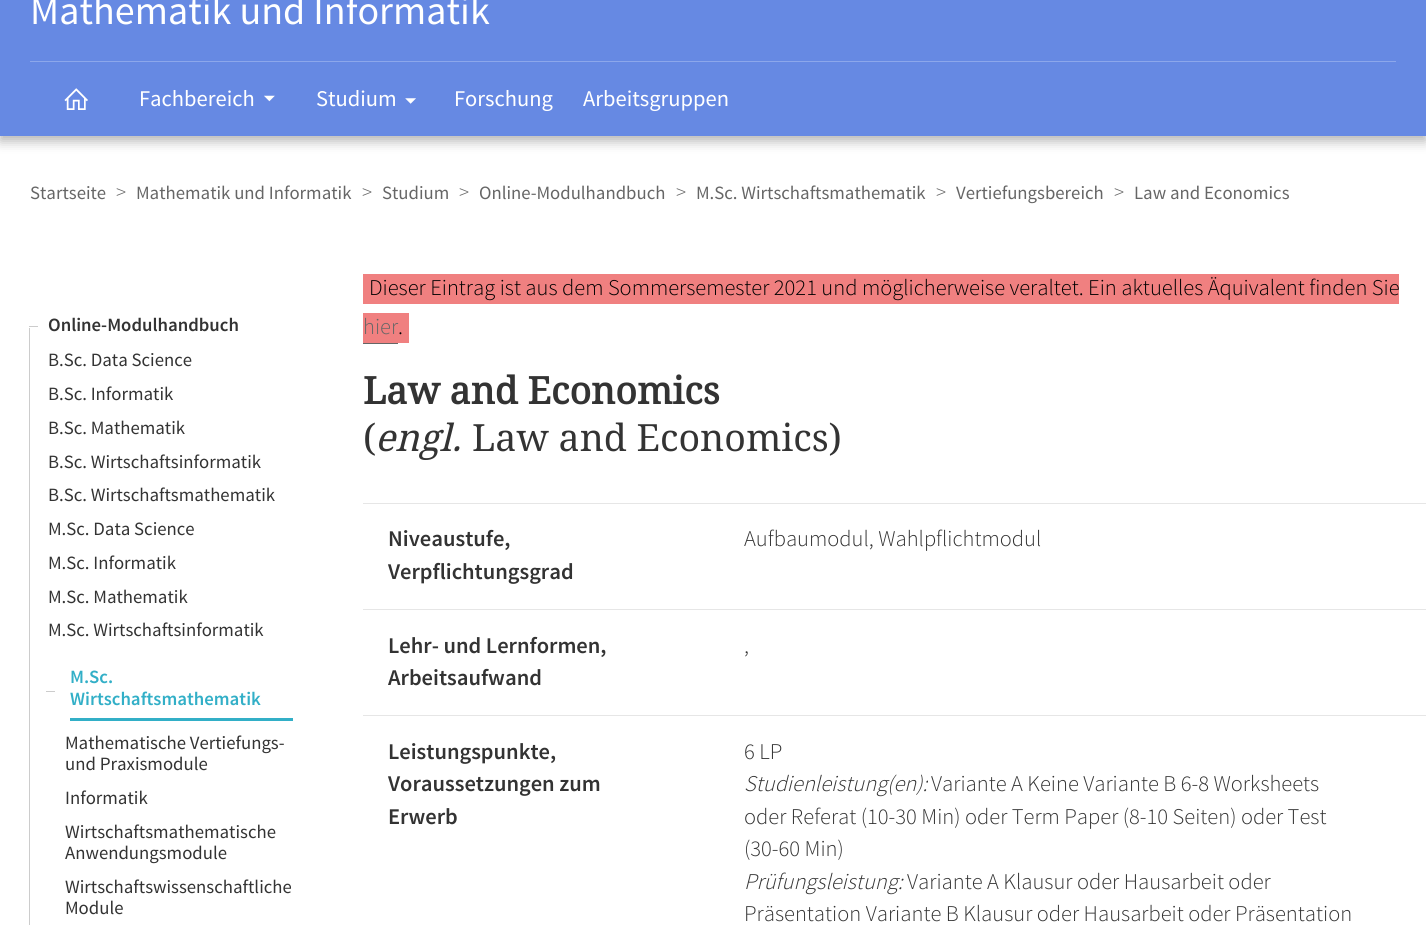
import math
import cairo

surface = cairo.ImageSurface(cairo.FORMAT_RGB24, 1426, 925)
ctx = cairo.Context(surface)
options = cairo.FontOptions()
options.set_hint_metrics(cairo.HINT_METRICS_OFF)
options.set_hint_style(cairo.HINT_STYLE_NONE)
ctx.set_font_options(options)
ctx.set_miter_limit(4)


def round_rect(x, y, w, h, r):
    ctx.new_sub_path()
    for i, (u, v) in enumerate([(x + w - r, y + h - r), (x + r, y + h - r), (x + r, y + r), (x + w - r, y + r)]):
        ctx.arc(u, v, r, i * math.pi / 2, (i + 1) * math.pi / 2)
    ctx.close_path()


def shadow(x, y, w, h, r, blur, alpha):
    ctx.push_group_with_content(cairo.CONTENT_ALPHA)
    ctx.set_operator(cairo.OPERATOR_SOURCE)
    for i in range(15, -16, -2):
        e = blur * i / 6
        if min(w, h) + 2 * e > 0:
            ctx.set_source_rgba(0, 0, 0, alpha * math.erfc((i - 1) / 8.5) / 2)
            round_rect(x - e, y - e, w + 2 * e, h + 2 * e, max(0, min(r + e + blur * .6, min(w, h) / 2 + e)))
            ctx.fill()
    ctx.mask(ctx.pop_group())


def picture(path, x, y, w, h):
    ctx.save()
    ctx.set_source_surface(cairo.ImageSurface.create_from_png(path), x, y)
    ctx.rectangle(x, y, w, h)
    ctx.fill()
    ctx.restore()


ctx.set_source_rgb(1, 1, 1)
ctx.paint()
ctx.set_source_rgb(0, 0, 0)
shadow(0, -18, 1426, 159, 0, 6, 0.3)
ctx.set_source_rgb(0.4, 0.537, 0.89)
ctx.rectangle(0, 0, 1426, 136)
ctx.fill()
ctx.select_font_face("Source Sans Pro")
ctx.set_font_size(40)
ctx.set_source_rgb(1, 1, 1)
ctx.move_to(30, 24)
ctx.show_text("Mathematik und Informatik")
ctx.set_source_rgb(0.549, 0.655, 0.918)
ctx.rectangle(30, 61, 1366, 1)
ctx.fill()
picture("img1.png", 64, 88, 24, 22)
ctx.set_font_size(22.5)
ctx.set_source_rgb(1, 1, 1)
ctx.move_to(139, 106)
ctx.show_text("Fachbereich")
picture("img2.png", 264, 95, 11, 7)
ctx.move_to(316, 106)
ctx.show_text("Studium")
picture("img3.png", 405, 98, 11, 6)
ctx.move_to(454, 106)
ctx.show_text("Forschung")
ctx.move_to(583, 106)
ctx.show_text("Arbeitsgruppen")
ctx.set_font_size(18.75)
ctx.set_source_rgb(0.4, 0.4, 0.4)
ctx.move_to(30, 199)
ctx.show_text("Startseite")
ctx.select_font_face("Source Sans Pro Light")
ctx.set_font_size(21)
ctx.move_to(116, 199)
ctx.show_text(">")
ctx.select_font_face("Source Sans Pro")
ctx.set_font_size(18.75)
ctx.move_to(136, 199)
ctx.show_text("Mathematik und Informatik")
ctx.select_font_face("Source Sans Pro Light")
ctx.set_font_size(21)
ctx.move_to(362, 199)
ctx.show_text(">")
ctx.select_font_face("Source Sans Pro")
ctx.set_font_size(18.75)
ctx.move_to(382, 199)
ctx.show_text("Studium")
ctx.select_font_face("Source Sans Pro Light")
ctx.set_font_size(21)
ctx.move_to(459, 199)
ctx.show_text(">")
ctx.select_font_face("Source Sans Pro")
ctx.set_font_size(18.75)
ctx.move_to(479, 199)
ctx.show_text("Online-Modulhandbuch")
ctx.select_font_face("Source Sans Pro Light")
ctx.set_font_size(21)
ctx.move_to(676, 199)
ctx.show_text(">")
ctx.select_font_face("Source Sans Pro")
ctx.set_font_size(18.75)
ctx.move_to(696, 199)
ctx.show_text("M.Sc. Wirtschaftsmathematik")
ctx.select_font_face("Source Sans Pro Light")
ctx.set_font_size(21)
ctx.move_to(936, 199)
ctx.show_text(">")
ctx.select_font_face("Source Sans Pro")
ctx.set_font_size(18.75)
ctx.move_to(956, 199)
ctx.show_text("Vertiefungsbereich")
ctx.select_font_face("Source Sans Pro Light")
ctx.set_font_size(21)
ctx.move_to(1114, 199)
ctx.show_text(">")
ctx.select_font_face("Source Sans Pro")
ctx.set_font_size(18.75)
ctx.move_to(1134, 199)
ctx.show_text("Law and Economics")
ctx.set_source_rgb(0.8, 0.8, 0.8)
ctx.rectangle(29, 328, 1, 597)
ctx.fill()
ctx.rectangle(29, 326, 9, 1)
ctx.fill()
ctx.select_font_face("Source Sans Pro SemiBold")
ctx.set_source_rgb(0.2, 0.2, 0.2)
ctx.move_to(48, 331)
ctx.show_text("Online-Modulhandbuch")
ctx.select_font_face("Source Sans Pro")
ctx.move_to(48, 366)
ctx.show_text("B.Sc. Data Science")
ctx.move_to(48, 400)
ctx.show_text("B.Sc. Informatik")
ctx.move_to(48, 434)
ctx.show_text("B.Sc. Mathematik")
ctx.move_to(48, 468)
ctx.show_text("B.Sc. Wirtschaftsinformatik")
ctx.move_to(48, 501)
ctx.show_text("B.Sc. Wirtschaftsmathematik")
ctx.move_to(48, 535)
ctx.show_text("M.Sc. Data Science")
ctx.move_to(48, 569)
ctx.show_text("M.Sc. Informatik")
ctx.move_to(48, 603)
ctx.show_text("M.Sc. Mathematik")
ctx.move_to(48, 636)
ctx.show_text("M.Sc. Wirtschaftsinformatik")
ctx.set_source_rgb(0.196, 0.686, 0.78)
ctx.rectangle(70, 718, 223, 3)
ctx.fill()
ctx.select_font_face("Source Sans Pro SemiBold")
ctx.move_to(70, 683)
ctx.show_text("M.Sc.")
ctx.set_source_rgb(0.8, 0.8, 0.8)
ctx.rectangle(46, 691, 9, 1)
ctx.fill()
ctx.set_source_rgb(0.196, 0.686, 0.78)
ctx.move_to(70, 705)
ctx.show_text("Wirtschaftsmathematik")
ctx.select_font_face("Source Sans Pro")
ctx.set_source_rgb(0.2, 0.2, 0.2)
ctx.move_to(65, 749)
ctx.show_text("Mathematische Vertiefungs-")
ctx.move_to(65, 770)
ctx.show_text("und Praxismodule")
ctx.move_to(65, 804)
ctx.show_text("Informatik")
ctx.move_to(65, 838)
ctx.show_text("Wirtschaftsmathematische")
ctx.move_to(65, 859)
ctx.show_text("Anwendungsmodule")
ctx.move_to(65, 893)
ctx.show_text("Wirtschaftswissenschaftliche")
ctx.move_to(65, 914)
ctx.show_text("Module")
ctx.set_source_rgb(0.941, 0.502, 0.502)
ctx.rectangle(363, 274, 1036, 30)
ctx.fill()
ctx.select_font_face("Source Sans Pro Light")
ctx.set_font_size(22.5)
ctx.set_source_rgb(0, 0, 0)
ctx.move_to(369, 295)
ctx.show_text("Dieser Eintrag ist aus dem Sommersemester 2021 und möglicherweise veraltet. Ein aktuelles Äquivalent finden Sie")
ctx.set_source_rgb(0.941, 0.502, 0.502)
ctx.rectangle(363, 313, 46, 30)
ctx.fill()
ctx.set_source_rgb(0.4, 0.4, 0.4)
ctx.move_to(363, 334)
ctx.show_text("hier")
ctx.set_source_rgb(0, 0, 0)
ctx.move_to(398, 334)
ctx.show_text(".")
ctx.set_source_rgb(0.4, 0.4, 0.4)
ctx.rectangle(363, 343, 35, 1)
ctx.fill()
ctx.select_font_face("Droid Serif", cairo.FONT_SLANT_NORMAL, cairo.FONT_WEIGHT_BOLD)
ctx.set_font_size(37.5)
ctx.set_source_rgb(0.2, 0.2, 0.2)
ctx.move_to(363, 404)
ctx.show_text("Law and Economics")
ctx.select_font_face("Droid Serif")
ctx.move_to(363, 451)
ctx.show_text("(")
ctx.select_font_face("Droid Serif", cairo.FONT_SLANT_ITALIC)
ctx.move_to(375, 451)
ctx.show_text("engl.")
ctx.select_font_face("Droid Serif")
ctx.move_to(472, 451)
ctx.show_text("Law and Economics)")
ctx.set_source_rgb(0.902, 0.902, 0.902)
ctx.rectangle(363, 503, 1063, 1)
ctx.fill()
ctx.select_font_face("Source Sans Pro SemiBold")
ctx.set_font_size(22.5)
ctx.set_source_rgb(0.2, 0.2, 0.2)
ctx.move_to(388, 546)
ctx.show_text("Niveaustufe,")
ctx.move_to(388, 579)
ctx.show_text("Verpflichtungsgrad")
ctx.select_font_face("Source Sans Pro Light")
ctx.move_to(744, 546)
ctx.show_text("Aufbaumodul, Wahlpflichtmodul")
ctx.set_source_rgb(0.902, 0.902, 0.902)
ctx.rectangle(363, 609, 1063, 1)
ctx.fill()
ctx.select_font_face("Source Sans Pro SemiBold")
ctx.set_source_rgb(0.2, 0.2, 0.2)
ctx.move_to(388, 653)
ctx.show_text("Lehr- und Lernformen,")
ctx.move_to(388, 685)
ctx.show_text("Arbeitsaufwand")
ctx.select_font_face("Source Sans Pro Light")
ctx.move_to(744, 653)
ctx.show_text(",")
ctx.set_source_rgb(0.902, 0.902, 0.902)
ctx.rectangle(363, 715, 1063, 1)
ctx.fill()
ctx.select_font_face("Source Sans Pro SemiBold")
ctx.set_source_rgb(0.2, 0.2, 0.2)
ctx.move_to(388, 759)
ctx.show_text("Leistungspunkte,")
ctx.move_to(388, 791)
ctx.show_text("Voraussetzungen zum")
ctx.move_to(388, 824)
ctx.show_text("Erwerb")
ctx.select_font_face("Source Sans Pro Light")
ctx.move_to(744, 759)
ctx.show_text("6 LP")
ctx.select_font_face("Source Sans Pro Light", cairo.FONT_SLANT_ITALIC)
ctx.move_to(744, 791)
ctx.show_text("Studienleistung(en):")
ctx.select_font_face("Source Sans Pro Light")
ctx.move_to(931, 791)
ctx.show_text("Variante A Keine Variante B 6-8 Worksheets")
ctx.move_to(744, 824)
ctx.show_text("oder Referat (10-30 Min) oder Term Paper (8-10 Seiten) oder Test")
ctx.move_to(744, 856)
ctx.show_text("(30-60 Min)")
ctx.select_font_face("Source Sans Pro Light", cairo.FONT_SLANT_ITALIC)
ctx.move_to(744, 889)
ctx.show_text("Prüfungsleistung:")
ctx.select_font_face("Source Sans Pro Light")
ctx.move_to(907, 889)
ctx.show_text("Variante A Klausur oder Hausarbeit oder")
ctx.move_to(744, 921)
ctx.show_text("Präsentation Variante B Klausur oder Hausarbeit oder Präsentation")
surface.write_to_png("page.png")
